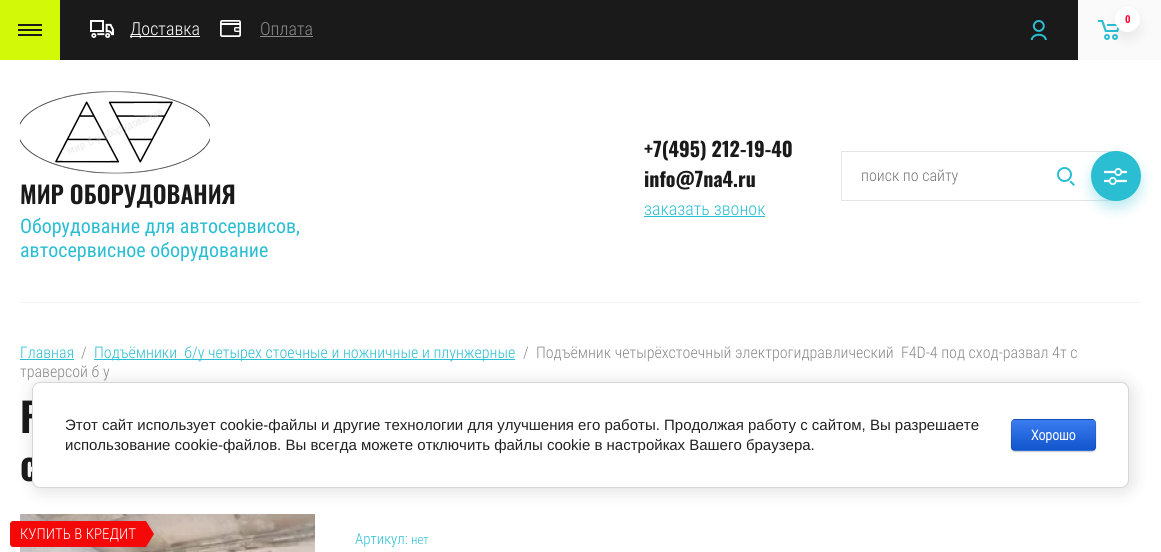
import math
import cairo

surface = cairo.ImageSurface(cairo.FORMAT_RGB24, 1161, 552)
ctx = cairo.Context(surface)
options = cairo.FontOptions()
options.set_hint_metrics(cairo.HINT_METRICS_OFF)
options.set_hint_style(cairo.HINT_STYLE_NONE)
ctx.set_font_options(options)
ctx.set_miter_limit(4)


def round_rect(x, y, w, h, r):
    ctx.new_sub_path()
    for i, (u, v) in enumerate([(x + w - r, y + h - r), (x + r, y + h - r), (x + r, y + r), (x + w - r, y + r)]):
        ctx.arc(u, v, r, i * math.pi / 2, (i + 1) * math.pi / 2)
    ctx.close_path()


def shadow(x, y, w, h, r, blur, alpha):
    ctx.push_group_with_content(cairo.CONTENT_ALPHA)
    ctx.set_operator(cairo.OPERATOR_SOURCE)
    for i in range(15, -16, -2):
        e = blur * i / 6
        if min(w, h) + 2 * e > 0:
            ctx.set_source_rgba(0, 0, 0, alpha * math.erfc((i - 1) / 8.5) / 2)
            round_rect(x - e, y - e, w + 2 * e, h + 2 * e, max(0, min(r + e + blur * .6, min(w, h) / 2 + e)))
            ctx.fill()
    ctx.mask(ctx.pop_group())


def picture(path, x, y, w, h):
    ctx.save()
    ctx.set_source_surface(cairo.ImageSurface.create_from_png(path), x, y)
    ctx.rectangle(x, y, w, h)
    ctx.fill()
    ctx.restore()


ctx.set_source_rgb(1, 1, 1)
ctx.paint()
ctx.set_source_rgb(0.102, 0.102, 0.102)
ctx.rectangle(60, 0, 1018, 60)
ctx.fill()
ctx.set_source_rgb(0.976, 0.98, 0.973)
ctx.rectangle(1078, 0, 83, 60)
ctx.fill()
picture("img1.png", 1098, 20, 22, 20)
ctx.set_source_rgb(0, 0, 0)
shadow(1115, 14, 25, 25, 12.5, 6.5, 0.07)
ctx.set_source_rgb(1, 1, 1)
ctx.arc(1127.5, 19.5, 12.5, 0, 2 * math.pi)
ctx.fill()
ctx.select_font_face("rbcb", cairo.FONT_SLANT_NORMAL, cairo.FONT_WEIGHT_BOLD)
ctx.set_font_size(11)
ctx.set_source_rgb(1, 0, 0.188)
ctx.move_to(1125, 23)
ctx.show_text("0")
ctx.set_source_rgb(0.82, 0.973, 0.035)
ctx.rectangle(0, 0, 60, 60)
ctx.fill()
picture("img2.png", 18, 24, 24, 12)
picture("img3.png", 90, 20, 24, 18)
ctx.set_source_rgb(1, 1, 1)
ctx.rectangle(130, 36, 70, 1)
ctx.fill()
ctx.select_font_face("Roboto Condensed Light")
ctx.set_font_size(18)
ctx.move_to(130, 35)
ctx.show_text("Доставка")
picture("img4.png", 220, 20, 21, 17)
ctx.set_source_rgb(0.541, 0.541, 0.541)
ctx.move_to(260, 35)
ctx.show_text("Оплата")
ctx.rectangle(260, 36, 53, 1)
ctx.fill()
picture("img5.png", 1030, 20, 17, 20)
ctx.set_source_rgb(0.949, 0.949, 0.949)
ctx.rectangle(20, 302, 1121, 1)
ctx.fill()
picture("img6.png", 20, 91, 190, 83)
ctx.select_font_face("Oswald SemiBold")
ctx.set_font_size(24)
ctx.set_source_rgb(0.102, 0.102, 0.102)
ctx.move_to(20, 204)
ctx.show_text("МИР ОБОРУДОВАНИЯ")
ctx.select_font_face("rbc")
ctx.set_font_size(20)
ctx.set_source_rgb(0.169, 0.745, 0.824)
ctx.move_to(20, 233)
ctx.show_text("Оборудование для автосервисов,")
ctx.move_to(20, 257)
ctx.show_text("автосервисное оборудование")
ctx.select_font_face("Oswald", cairo.FONT_SLANT_NORMAL, cairo.FONT_WEIGHT_BOLD)
ctx.set_source_rgb(0.102, 0.102, 0.102)
ctx.move_to(644, 157)
ctx.show_text("+7(495) 212-19-40")
ctx.move_to(644, 187)
ctx.show_text("info@7na4.ru")
ctx.select_font_face("Roboto Condensed Light")
ctx.set_font_size(18)
ctx.set_source_rgb(0.169, 0.745, 0.824)
ctx.move_to(644, 215)
ctx.show_text("заказать звонок")
ctx.rectangle(644, 216, 121, 1)
ctx.fill()
ctx.rectangle(841.5, 151.5, 278, 49)
ctx.set_source_rgb(0.898, 0.898, 0.898)
ctx.set_line_width(1)
ctx.stroke()
ctx.set_font_size(16)
ctx.set_source_rgb(0.459, 0.459, 0.459)
ctx.move_to(861, 181)
ctx.show_text("поиск по сайту")
picture("img7.png", 1057, 167, 18, 19)
ctx.set_source_rgb(0.169, 0.745, 0.824)
shadow(1091, 158, 50, 50, 25, 6.5, 0.32)
ctx.set_source_rgb(0.169, 0.745, 0.824)
ctx.arc(1116, 176, 25, 0, 2 * math.pi)
ctx.fill()
picture("img8.png", 1104, 168, 23, 17)
ctx.move_to(20, 358)
ctx.show_text("Главная")
ctx.rectangle(20, 359, 54, 1)
ctx.fill()
ctx.set_source_rgb(0.541, 0.541, 0.541)
ctx.move_to(81, 358)
ctx.show_text("/")
ctx.set_source_rgb(0.169, 0.745, 0.824)
ctx.rectangle(94, 359, 421, 1)
ctx.fill()
ctx.move_to(94, 358)
ctx.show_text("Подъёмники  б/у четырех стоечные и ножничные и плунжерные")
ctx.set_source_rgb(0.541, 0.541, 0.541)
ctx.move_to(523, 358)
ctx.show_text("/  Подъёмник четырёхстоечный электрогидравлический  F4D-4 под сход-развал 4т с")
ctx.move_to(20, 377)
ctx.show_text("траверсой б у")
ctx.select_font_face("Oswald SemiBold")
ctx.set_font_size(40)
ctx.set_source_rgb(0.102, 0.102, 0.102)
ctx.move_to(20, 433)
ctx.show_text("F")
ctx.move_to(20, 481)
ctx.show_text("с")
picture("img9.png", 20, 514, 295, 38)
ctx.set_source_rgb(0.957, 0.035, 0.035)
ctx.new_path()
ctx.move_to(13, 521)
ctx.line_to(146, 521)
ctx.line_to(146, 547)
ctx.line_to(13, 547)
ctx.curve_to(11.5, 547, 10, 545.5, 10, 544)
ctx.line_to(10, 524)
ctx.curve_to(10, 522.5, 11.5, 521, 13, 521)
ctx.close_path()
ctx.fill()
ctx.select_font_face("Roboto Condensed Light")
ctx.set_font_size(15)
ctx.set_source_rgb(1, 1, 1)
ctx.move_to(20, 539)
ctx.show_text("КУПИТЬ В КРЕДИТ")
ctx.set_source_rgb(0.957, 0.035, 0.035)
ctx.new_path()
ctx.move_to(146, 547)
ctx.line_to(146, 521)
ctx.line_to(154, 534)
ctx.close_path()
ctx.fill()
ctx.set_source_rgb(0.169, 0.745, 0.824)
ctx.move_to(355, 544)
ctx.show_text("Артикул:")
ctx.set_font_size(13)
ctx.move_to(411, 544)
ctx.show_text("нет")
ctx.set_source_rgb(0, 0, 0)
shadow(34, 384, 1097, 106, 8, 9, 0.14)
ctx.set_source_rgb(1, 1, 1)
round_rect(32.5, 382.5, 1096, 105, 7.5)
ctx.fill_preserve()
ctx.set_source_rgb(0.839, 0.839, 0.839)
ctx.stroke()
ctx.select_font_face("Liberation Sans")
ctx.set_font_size(15)
ctx.set_source_rgb(0.129, 0.129, 0.129)
ctx.move_to(65, 430)
ctx.show_text("Этот сайт использует cookie-файлы и другие технологии для улучшения его работы. Продолжая работу с сайтом, Вы разрешаете")
ctx.move_to(65, 450)
ctx.show_text("использование cookie-файлов. Вы всегда можете отключить файлы cookie в настройках Вашего браузера.")
ctx.set_source_rgb(0, 0, 0)
shadow(1011, 420, 85, 32, 4, 0.5, 0.2)
ctx.save()
round_rect(1011, 419, 85, 32, 4)
ctx.clip()
gradient = cairo.LinearGradient(1054, 390, 1054, 420)
gradient.add_color_stop_rgba(0, 0.231, 0.486, 0.937, 1)
gradient.add_color_stop_rgba(1, 0.067, 0.333, 0.8, 1)
ctx.set_source(gradient)
ctx.rectangle(1011, 419, 85, 1)
ctx.fill()
gradient = cairo.LinearGradient(1054, 420, 1054, 450)
gradient.add_color_stop_rgba(0, 0.231, 0.486, 0.937, 1)
gradient.add_color_stop_rgba(1, 0.067, 0.333, 0.8, 1)
ctx.set_source(gradient)
ctx.rectangle(1011, 420, 85, 30)
ctx.fill()
gradient = cairo.LinearGradient(1054, 450, 1054, 480)
gradient.add_color_stop_rgba(0, 0.231, 0.486, 0.937, 1)
gradient.add_color_stop_rgba(1, 0.067, 0.333, 0.8, 1)
ctx.set_source(gradient)
ctx.rectangle(1011, 450, 85, 1)
ctx.fill()
ctx.restore()
round_rect(1011.5, 419.5, 84, 31, 3.5)
ctx.set_source_rgba(0, 0, 0, 0.1)
ctx.stroke()
ctx.select_font_face("Roboto Condensed", cairo.FONT_SLANT_NORMAL, cairo.FONT_WEIGHT_BOLD)
ctx.set_font_size(14)
ctx.set_source_rgb(1, 1, 1)
ctx.move_to(1031, 440)
ctx.show_text("Хорошо")
surface.write_to_png("page.png")
